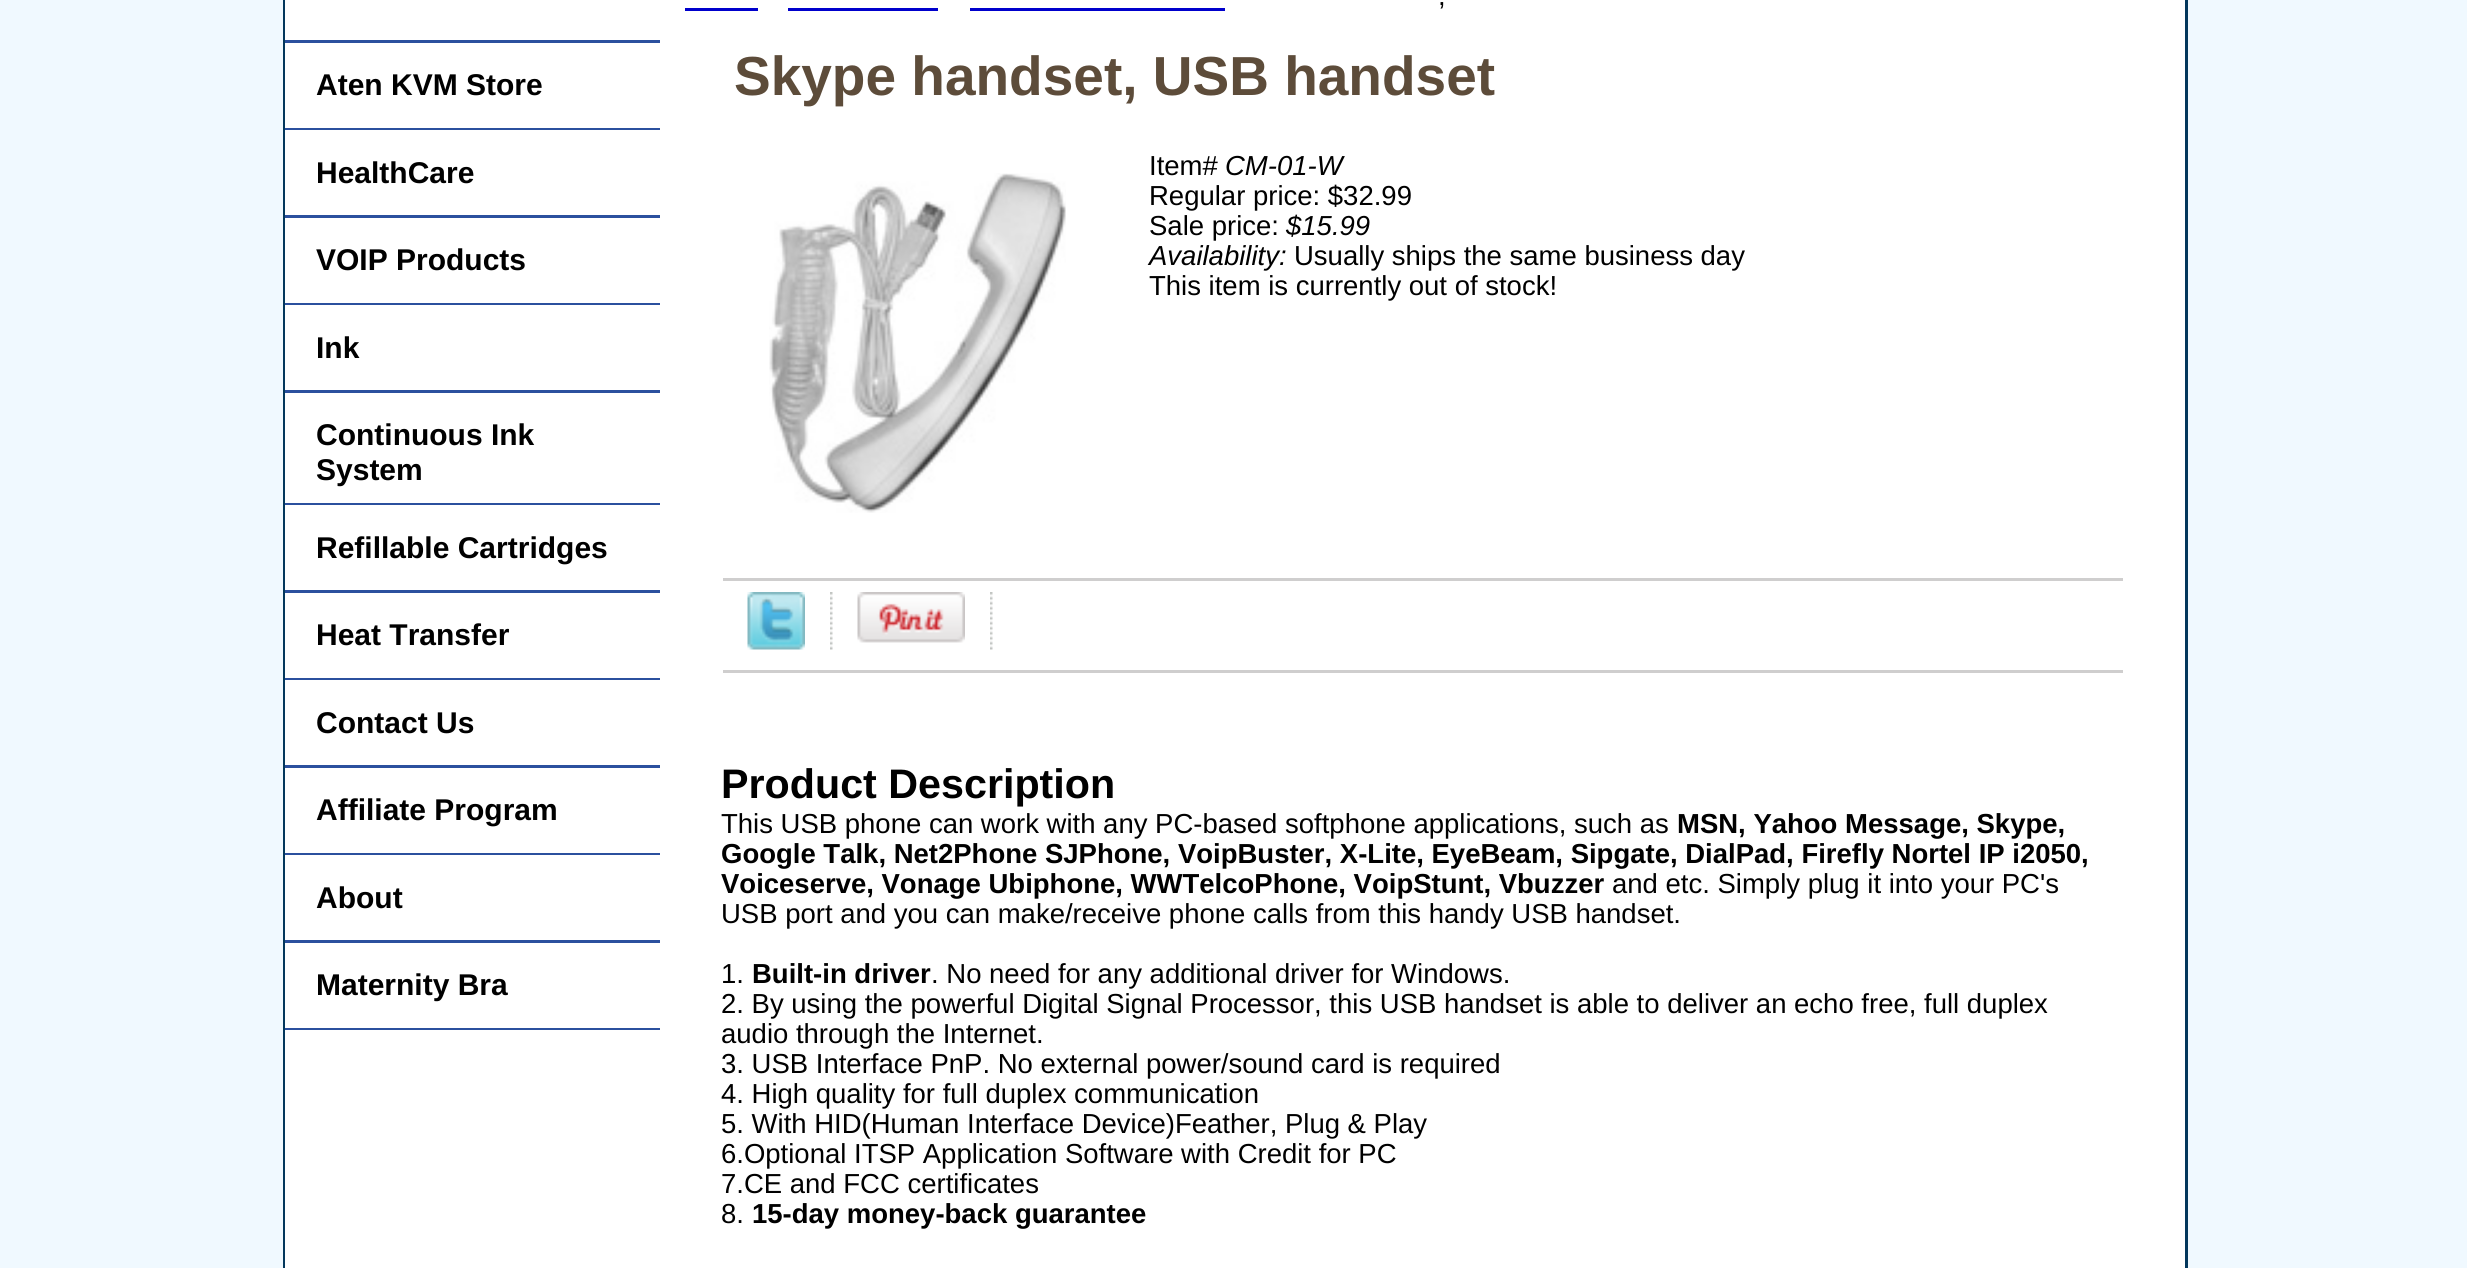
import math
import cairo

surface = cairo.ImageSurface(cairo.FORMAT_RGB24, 2467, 1268)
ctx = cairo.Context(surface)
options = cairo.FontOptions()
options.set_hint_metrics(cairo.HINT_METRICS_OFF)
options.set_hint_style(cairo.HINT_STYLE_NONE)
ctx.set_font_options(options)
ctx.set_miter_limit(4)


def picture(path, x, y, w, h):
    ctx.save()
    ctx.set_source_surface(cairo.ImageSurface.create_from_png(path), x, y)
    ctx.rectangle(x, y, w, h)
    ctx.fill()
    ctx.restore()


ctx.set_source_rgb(0.941, 0.973, 1)
ctx.paint()
ctx.rectangle(284.5, -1.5, 1902, 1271)
ctx.set_source_rgb(0.012, 0.216, 0.361)
ctx.set_line_width(3)
ctx.stroke()
ctx.set_source_rgb(1, 1, 1)
ctx.rectangle(285, 0, 1900, 1268)
ctx.fill()
ctx.set_source_rgb(0.169, 0.314, 0.62)
ctx.rectangle(285, 40, 375, 3)
ctx.fill()
ctx.rectangle(285, 128, 375, 2)
ctx.fill()
ctx.select_font_face("Liberation Sans", cairo.FONT_SLANT_NORMAL, cairo.FONT_WEIGHT_BOLD)
ctx.set_font_size(30)
ctx.set_source_rgb(0, 0, 0)
ctx.move_to(316, 95)
ctx.show_text("Aten KVM Store")
ctx.set_source_rgb(0.169, 0.314, 0.62)
ctx.rectangle(285, 215, 375, 3)
ctx.fill()
ctx.set_source_rgb(0, 0, 0)
ctx.move_to(316, 183)
ctx.show_text("HealthCare")
ctx.set_source_rgb(0.169, 0.314, 0.62)
ctx.rectangle(285, 303, 375, 2)
ctx.fill()
ctx.set_source_rgb(0, 0, 0)
ctx.move_to(316, 270)
ctx.show_text("VOIP Products")
ctx.set_source_rgb(0.169, 0.314, 0.62)
ctx.rectangle(285, 390, 375, 3)
ctx.fill()
ctx.set_source_rgb(0, 0, 0)
ctx.move_to(316, 358)
ctx.show_text("Ink")
ctx.set_source_rgb(0.169, 0.314, 0.62)
ctx.rectangle(285, 503, 375, 2)
ctx.fill()
ctx.set_source_rgb(0, 0, 0)
ctx.move_to(316, 445)
ctx.show_text("Continuous Ink")
ctx.move_to(316, 480)
ctx.show_text("System")
ctx.set_source_rgb(0.169, 0.314, 0.62)
ctx.rectangle(285, 590, 375, 3)
ctx.fill()
ctx.set_source_rgb(0, 0, 0)
ctx.move_to(316, 558)
ctx.show_text("Refillable Cartridges")
ctx.set_source_rgb(0.169, 0.314, 0.62)
ctx.rectangle(285, 678, 375, 2)
ctx.fill()
ctx.set_source_rgb(0, 0, 0)
ctx.move_to(316, 645)
ctx.show_text("Heat Transfer")
ctx.set_source_rgb(0.169, 0.314, 0.62)
ctx.rectangle(285, 765, 375, 3)
ctx.fill()
ctx.set_source_rgb(0, 0, 0)
ctx.move_to(316, 733)
ctx.show_text("Contact Us")
ctx.set_source_rgb(0.169, 0.314, 0.62)
ctx.rectangle(285, 853, 375, 2)
ctx.fill()
ctx.set_source_rgb(0, 0, 0)
ctx.move_to(316, 820)
ctx.show_text("Affiliate Program")
ctx.set_source_rgb(0.169, 0.314, 0.62)
ctx.rectangle(285, 940, 375, 3)
ctx.fill()
ctx.set_source_rgb(0, 0, 0)
ctx.move_to(316, 908)
ctx.show_text("About")
ctx.set_source_rgb(0.169, 0.314, 0.62)
ctx.rectangle(285, 1028, 375, 2)
ctx.fill()
ctx.set_source_rgb(0, 0, 0)
ctx.move_to(316, 995)
ctx.show_text("Maternity Bra")
ctx.select_font_face("Liberation Sans")
ctx.set_font_size(27.5)
ctx.move_to(1438, 5)
ctx.show_text(",")
ctx.set_source_rgb(0, 0, 0.8)
ctx.rectangle(685, 8, 73, 3)
ctx.fill()
ctx.rectangle(788, 8, 150, 3)
ctx.fill()
ctx.rectangle(970, 8, 255, 3)
ctx.fill()
ctx.select_font_face("Liberation Sans", cairo.FONT_SLANT_NORMAL, cairo.FONT_WEIGHT_BOLD)
ctx.set_font_size(55)
ctx.set_source_rgb(0.365, 0.298, 0.227)
ctx.move_to(734, 95)
ctx.show_text("Skype handset, USB handset")
picture("img1.png", 769, 173, 297, 340)
ctx.select_font_face("Liberation Sans")
ctx.set_font_size(27.5)
ctx.set_source_rgb(0, 0, 0)
ctx.move_to(1149, 175)
ctx.show_text("Item#")
ctx.select_font_face("Liberation Sans", cairo.FONT_SLANT_ITALIC)
ctx.move_to(1225, 175)
ctx.show_text("CM-01-W")
ctx.select_font_face("Liberation Sans")
ctx.move_to(1149, 205)
ctx.show_text("Regular price: $32.99")
ctx.move_to(1149, 235)
ctx.show_text("Sale price:")
ctx.select_font_face("Liberation Sans", cairo.FONT_SLANT_ITALIC)
ctx.move_to(1286, 235)
ctx.show_text("$15.99")
ctx.move_to(1149, 265)
ctx.show_text("Availability:")
ctx.select_font_face("Liberation Sans")
ctx.move_to(1294, 265)
ctx.show_text("Usually ships the same business day")
ctx.move_to(1149, 295)
ctx.show_text("This item is currently out of stock!")
ctx.set_source_rgb(0.812, 0.808, 0.808)
ctx.rectangle(723, 578, 1400, 3)
ctx.fill()
picture("img2.png", 747, 592, 58, 58)
picture("img3.png", 830, 592, 3, 58)
picture("img4.png", 857, 592, 108, 51)
picture("img3.png", 990, 592, 3, 58)
ctx.rectangle(723, 670, 1400, 3)
ctx.fill()
ctx.select_font_face("Liberation Sans", cairo.FONT_SLANT_NORMAL, cairo.FONT_WEIGHT_BOLD)
ctx.set_font_size(41.25)
ctx.set_source_rgb(0, 0, 0)
ctx.move_to(721, 798)
ctx.show_text("Product Description")
ctx.select_font_face("Liberation Sans")
ctx.set_font_size(27.5)
ctx.move_to(721, 833)
ctx.show_text("This USB phone can work with any PC-based softphone applications, such as")
ctx.select_font_face("Liberation Sans", cairo.FONT_SLANT_NORMAL, cairo.FONT_WEIGHT_BOLD)
ctx.move_to(1677, 833)
ctx.show_text("MSN, Yahoo Message, Skype,")
ctx.move_to(721, 863)
ctx.show_text("Google Talk, Net2Phone SJPhone, VoipBuster, X-Lite, EyeBeam, Sipgate, DialPad, Firefly Nortel IP i2050,")
ctx.move_to(721, 893)
ctx.show_text("Voiceserve, Vonage Ubiphone, WWTelcoPhone, VoipStunt, Vbuzzer")
ctx.select_font_face("Liberation Sans")
ctx.move_to(1612, 893)
ctx.show_text("and etc. Simply plug it into your PC's")
ctx.move_to(721, 923)
ctx.show_text("USB port and you can make/receive phone calls from this handy USB handset.")
ctx.move_to(721, 983)
ctx.show_text("1.")
ctx.select_font_face("Liberation Sans", cairo.FONT_SLANT_NORMAL, cairo.FONT_WEIGHT_BOLD)
ctx.move_to(752, 983)
ctx.show_text("Built-in driver")
ctx.select_font_face("Liberation Sans")
ctx.move_to(931, 983)
ctx.show_text(". No need for any additional driver for Windows.")
ctx.move_to(721, 1013)
ctx.show_text("2. By using the powerful Digital Signal Processor, this USB handset is able to deliver an echo free, full duplex")
ctx.move_to(721, 1043)
ctx.show_text("audio through the Internet.")
ctx.move_to(721, 1073)
ctx.show_text("3. USB Interface PnP. No external power/sound card is required")
ctx.move_to(721, 1103)
ctx.show_text("4. High quality for full duplex communication")
ctx.move_to(721, 1133)
ctx.show_text("5. With HID(Human Interface Device)Feather, Plug & Play")
ctx.move_to(721, 1163)
ctx.show_text("6.Optional ITSP Application Software with Credit for PC")
ctx.move_to(721, 1193)
ctx.show_text("7.CE and FCC certificates")
ctx.move_to(721, 1223)
ctx.show_text("8.")
ctx.select_font_face("Liberation Sans", cairo.FONT_SLANT_NORMAL, cairo.FONT_WEIGHT_BOLD)
ctx.move_to(752, 1223)
ctx.show_text("15-day money-back guarantee")
surface.write_to_png("page.png")
